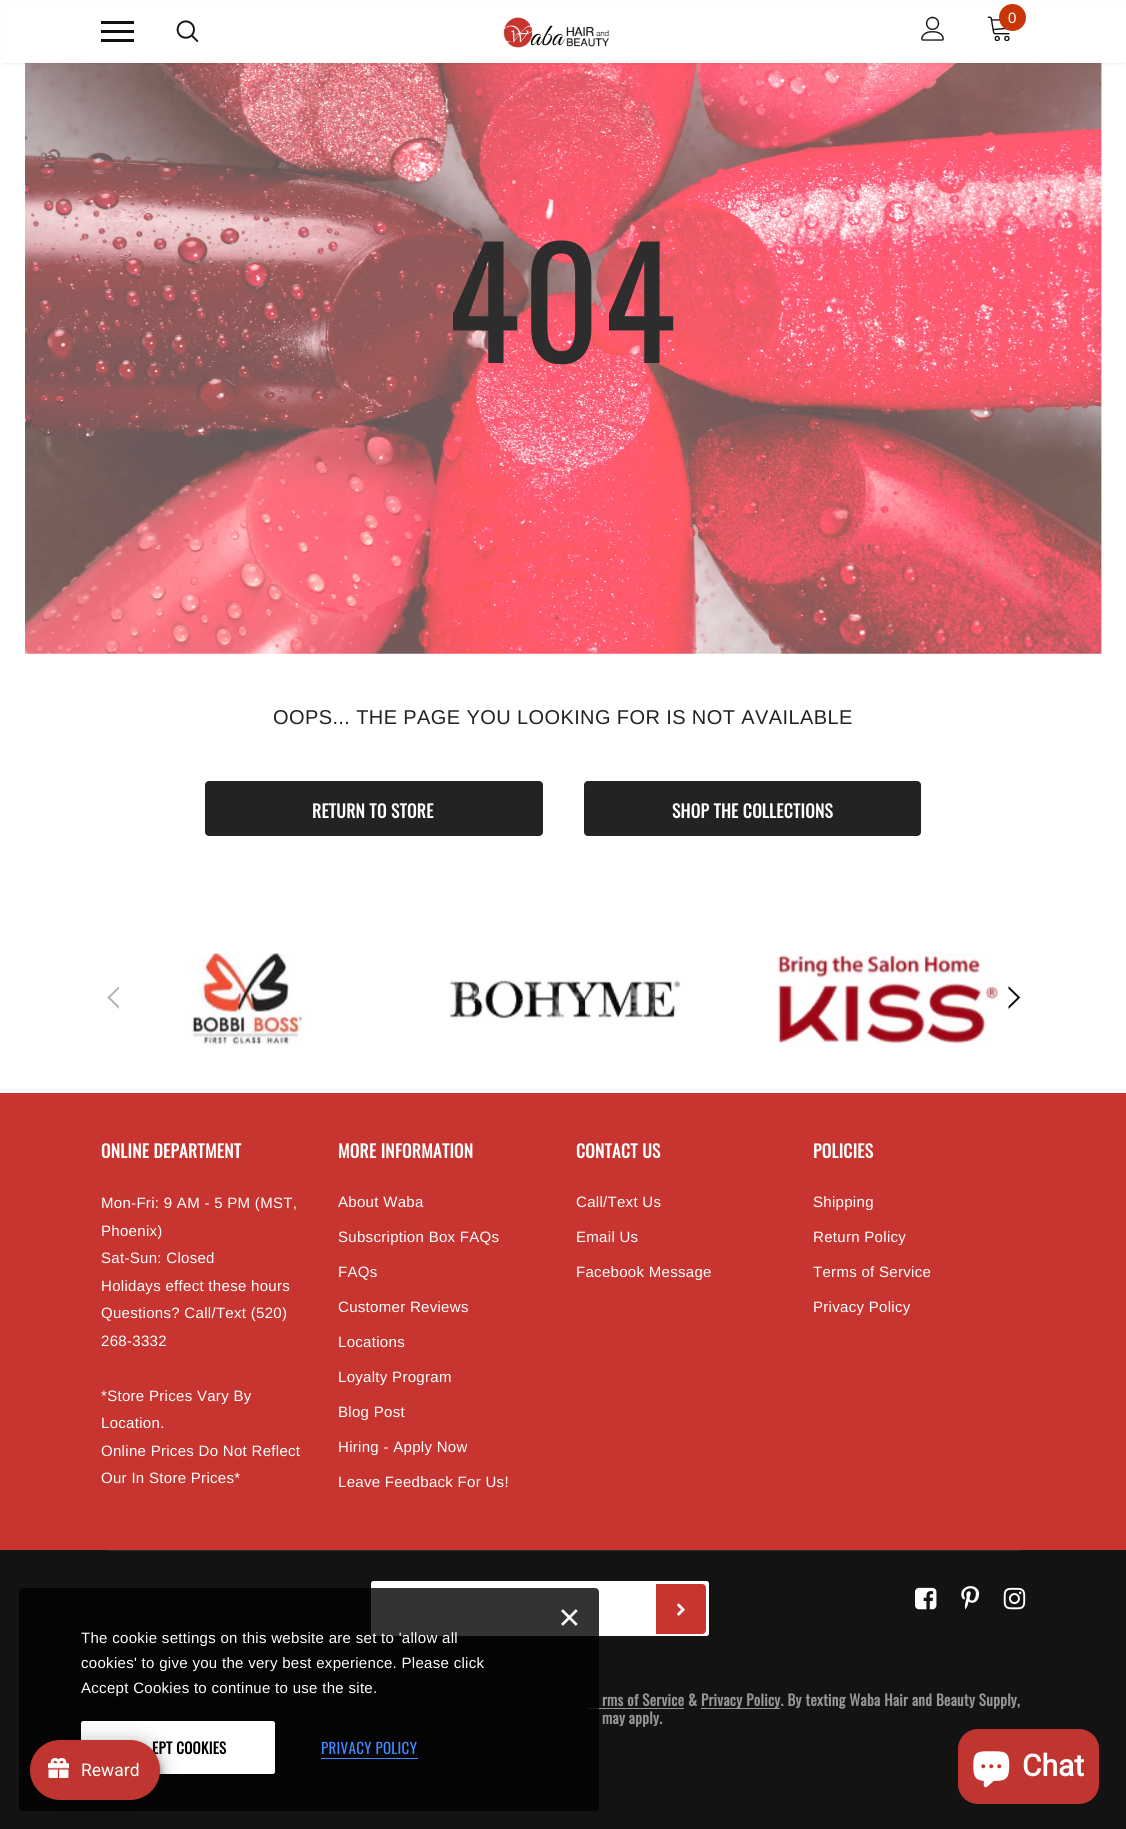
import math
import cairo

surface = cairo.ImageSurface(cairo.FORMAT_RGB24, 1126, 1829)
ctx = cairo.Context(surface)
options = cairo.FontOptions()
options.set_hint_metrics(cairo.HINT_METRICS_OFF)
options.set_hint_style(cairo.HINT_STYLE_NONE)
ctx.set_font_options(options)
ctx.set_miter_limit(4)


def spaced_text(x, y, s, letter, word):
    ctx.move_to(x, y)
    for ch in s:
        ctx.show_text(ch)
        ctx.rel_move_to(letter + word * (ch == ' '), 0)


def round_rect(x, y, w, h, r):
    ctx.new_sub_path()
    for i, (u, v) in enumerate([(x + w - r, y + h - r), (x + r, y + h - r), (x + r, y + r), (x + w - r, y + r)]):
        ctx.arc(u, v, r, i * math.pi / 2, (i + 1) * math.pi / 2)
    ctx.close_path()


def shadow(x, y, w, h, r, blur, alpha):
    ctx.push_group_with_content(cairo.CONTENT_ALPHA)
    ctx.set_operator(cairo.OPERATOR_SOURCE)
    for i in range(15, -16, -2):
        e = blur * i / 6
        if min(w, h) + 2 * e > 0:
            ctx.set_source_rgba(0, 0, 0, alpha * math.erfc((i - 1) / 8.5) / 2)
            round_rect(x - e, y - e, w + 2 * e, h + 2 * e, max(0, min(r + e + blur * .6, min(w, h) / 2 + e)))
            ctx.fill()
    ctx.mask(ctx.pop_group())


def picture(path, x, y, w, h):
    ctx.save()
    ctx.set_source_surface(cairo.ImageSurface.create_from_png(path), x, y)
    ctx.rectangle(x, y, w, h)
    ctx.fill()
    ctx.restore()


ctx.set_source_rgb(1, 1, 1)
ctx.paint()
picture("img5.png", 25, 63, 1077, 591)
ctx.set_source_rgb(0, 0, 0)
shadow(4, 8, 1119, 55, 0, 2, 0.12)
ctx.set_source_rgb(1, 1, 1)
ctx.rectangle(1, 5, 1125, 58)
ctx.fill()
ctx.set_source_rgb(0.059, 0.059, 0.059)
ctx.rectangle(101, 30, 33, 3)
ctx.fill()
ctx.rectangle(101, 21, 33, 3)
ctx.fill()
ctx.rectangle(101, 39, 33, 3)
ctx.fill()
picture("img1.png", 176, 20, 23, 22)
picture("img2.png", 503, 17, 107, 31)
picture("img3.png", 921, 16, 23, 25)
picture("img4.png", 987, 16, 23, 25)
ctx.set_source_rgb(0.784, 0.208, 0.031)
ctx.arc(1012.5, 17.5, 13.5, 0, 2 * math.pi)
ctx.fill()
ctx.select_font_face("Arimo")
ctx.set_font_size(15)
ctx.set_source_rgb(1, 1, 1)
spaced_text(1008, 23, "0", 0.3, 0)
ctx.select_font_face("Oswald")
ctx.set_font_size(150)
ctx.set_source_rgb(0.176, 0.176, 0.176)
spaced_text(447, 363, "404", 3, 0)
ctx.select_font_face("Arimo")
ctx.set_font_size(20)
ctx.set_source_rgb(0.137, 0.137, 0.137)
spaced_text(273, 724, "OOPS... THE PAGE YOU LOOKING FOR IS NOT AVAILABLE", 0.4, 0)
round_rect(205.5, 781.5, 337, 54, 3.5)
ctx.fill_preserve()
ctx.set_line_width(1)
ctx.stroke()
ctx.select_font_face("Oswald", cairo.FONT_SLANT_NORMAL, cairo.FONT_WEIGHT_BOLD)
ctx.set_font_size(17.5)
ctx.set_source_rgb(1, 1, 1)
spaced_text(312, 818, "RETURN TO STORE", 0.3, 0)
ctx.set_source_rgb(0.137, 0.137, 0.137)
round_rect(584.5, 781.5, 336, 54, 3.5)
ctx.fill_preserve()
ctx.stroke()
ctx.set_source_rgb(1, 1, 1)
spaced_text(672, 818, "SHOP THE COLLECTIONS", 0.3, 0)
picture("img6.png", 107, 986, 12, 23)
picture("img7.png", 191, 953, 119, 92)
picture("img8.png", 449, 980, 232, 39)
picture("img9.png", 776, 953, 223, 91)
picture("img10.png", 1008, 986, 13, 23)
ctx.set_source_rgb(0.784, 0.208, 0.188)
ctx.rectangle(0, 1093, 1126, 457)
ctx.fill()
ctx.set_source_rgb(1, 1, 1)
spaced_text(101, 1158, "ONLINE DEPARTMENT", 0.3, 0)
ctx.select_font_face("Arimo")
ctx.set_font_size(15)
spaced_text(101, 1208, "Mon-Fri: 9 AM - 5 PM (MST,", 0.3, 0)
spaced_text(101, 1236, "Phoenix)", 0.3, 0)
spaced_text(101, 1263, "Sat-Sun: Closed", 0.3, 0)
spaced_text(101, 1291, "Holidays effect these hours", 0.3, 0)
spaced_text(101, 1318, "Questions? Call/Text (520)", 0.3, 0)
spaced_text(101, 1346, "268-3332", 0.3, 0)
spaced_text(101, 1401, "*Store Prices Vary By", 0.3, 0)
spaced_text(101, 1428, "Location.", 0.3, 0)
spaced_text(101, 1456, "Online Prices Do Not Reflect", 0.3, 0)
spaced_text(101, 1483, "Our In Store Prices*", 0.3, 0)
ctx.select_font_face("Oswald", cairo.FONT_SLANT_NORMAL, cairo.FONT_WEIGHT_BOLD)
ctx.set_font_size(17.5)
spaced_text(338, 1158, "MORE INFORMATION", 0.3, 0)
ctx.select_font_face("Arimo")
ctx.set_font_size(15)
spaced_text(338, 1207, "About Waba", 0.3, 0)
spaced_text(338, 1242, "Subscription Box FAQs", 0.3, 0)
spaced_text(338, 1277, "FAQs", 0.3, 0)
spaced_text(338, 1312, "Customer Reviews", 0.3, 0)
spaced_text(338, 1347, "Locations", 0.3, 0)
spaced_text(338, 1382, "Loyalty Program", 0.3, 0)
spaced_text(338, 1417, "Blog Post", 0.3, 0)
spaced_text(338, 1452, "Hiring - Apply Now", 0.3, 0)
spaced_text(338, 1487, "Leave Feedback For Us!", 0.3, 0)
ctx.select_font_face("Oswald", cairo.FONT_SLANT_NORMAL, cairo.FONT_WEIGHT_BOLD)
ctx.set_font_size(17.5)
spaced_text(576, 1158, "CONTACT US", 0.3, 0)
ctx.select_font_face("Arimo")
ctx.set_font_size(15)
spaced_text(576, 1207, "Call/Text Us", 0.3, 0)
spaced_text(576, 1242, "Email Us", 0.3, 0)
spaced_text(576, 1277, "Facebook Message", 0.3, 0)
ctx.select_font_face("Oswald", cairo.FONT_SLANT_NORMAL, cairo.FONT_WEIGHT_BOLD)
ctx.set_font_size(17.5)
spaced_text(813, 1158, "POLICIES", 0.3, 0)
ctx.select_font_face("Arimo")
ctx.set_font_size(15)
spaced_text(813, 1207, "Shipping", 0.3, 0)
spaced_text(813, 1242, "Return Policy", 0.3, 0)
spaced_text(813, 1277, "Terms of Service", 0.3, 0)
spaced_text(813, 1312, "Privacy Policy", 0.3, 0)
ctx.set_source_rgb(0.078, 0.078, 0.078)
ctx.rectangle(0, 1550, 1126, 279)
ctx.fill()
ctx.set_source_rgb(0.165, 0.165, 0.165)
ctx.rectangle(108, 1550, 912, 1)
ctx.fill()
ctx.set_source_rgb(1, 1, 1)
round_rect(371, 1581, 338, 55, 2.5)
ctx.fill()
ctx.set_source_rgb(0.784, 0.208, 0.188)
ctx.new_path()
ctx.move_to(656.5, 1584.5)
ctx.line_to(702, 1584.5)
ctx.curve_to(704, 1584.5, 705.5, 1586, 705.5, 1588)
ctx.line_to(705.5, 1630)
ctx.curve_to(705.5, 1632, 704, 1633.5, 702, 1633.5)
ctx.line_to(656.5, 1633.5)
ctx.close_path()
ctx.fill_preserve()
ctx.stroke()
picture("img11.png", 677, 1603, 8, 13)
picture("img12.png", 915, 1587, 22, 23)
picture("img13.png", 961, 1586, 19, 24)
picture("img14.png", 1003, 1587, 23, 23)
ctx.select_font_face("Oswald", cairo.FONT_SLANT_NORMAL, cairo.FONT_WEIGHT_BOLD)
ctx.set_source_rgb(0.588, 0.588, 0.588)
spaced_text(602, 1706, "rms of Service &", 0.3, 0)
ctx.rectangle(589, 1708, 95, 1)
ctx.fill()
ctx.rectangle(701, 1708, 79, 1)
ctx.fill()
spaced_text(701, 1706, "Privacy Policy. By texting Waba Hair and Beauty Supply,", 0.3, 0)
spaced_text(602, 1724, "may apply.", 0.3, 0)
ctx.set_source_rgba(0, 0, 0, 0.8)
round_rect(19, 1588, 580, 223, 4)
ctx.fill()
picture("img15.png", 561, 1609, 17, 17)
ctx.select_font_face("Arimo")
ctx.set_source_rgb(1, 1, 1)
spaced_text(81, 1643, "The cookie settings on this website are set to 'allow all", 0.3, 0)
spaced_text(81, 1668, "cookies' to give you the very best experience. Please click", 0.3, 0)
spaced_text(81, 1693, "Accept Cookies to continue to use the site.", 0.3, 0)
round_rect(81.5, 1721.5, 193, 52, 2)
ctx.fill_preserve()
ctx.stroke()
ctx.select_font_face("Oswald", cairo.FONT_SLANT_NORMAL, cairo.FONT_WEIGHT_BOLD)
ctx.set_source_rgb(0, 0, 0)
spaced_text(152, 1754, "EPT COOKIES", 0.3, 0)
ctx.select_font_face("Oswald")
ctx.set_source_rgb(0.263, 0.537, 1)
spaced_text(321, 1754, "PRIVACY POLICY", 0.3, 0)
ctx.rectangle(321, 1758, 97, 1)
ctx.fill()
ctx.set_source_rgb(0, 0, 0)
shadow(30, 1741, 130, 60, 30, 11, 0.12)
shadow(30, 1748, 130, 60, 30, 6, 0.14)
shadow(31, 1745, 128, 58, 29, 3, 0.2)
ctx.set_source_rgb(0.753, 0.208, 0.188)
round_rect(958, 1729, 141, 75, 20)
ctx.fill()
picture("img16.png", 973, 1751, 37, 37)
ctx.select_font_face("Roboto", cairo.FONT_SLANT_NORMAL, cairo.FONT_WEIGHT_BOLD)
ctx.set_font_size(30)
ctx.set_source_rgb(1, 1, 1)
ctx.move_to(1022, 1776)
ctx.show_text("Chat")
ctx.set_source_rgb(0, 0, 0)
shadow(30, 1741, 130, 60, 30, 11, 0.12)
shadow(30, 1748, 130, 60, 30, 6, 0.14)
shadow(31, 1745, 128, 58, 29, 3, 0.2)
ctx.set_source_rgb(0.753, 0.208, 0.188)
round_rect(30, 1740, 130, 60, 30)
ctx.fill()
picture("img17.png", 48, 1757, 21, 21)
ctx.select_font_face("Roboto")
ctx.set_font_size(17.5)
ctx.set_source_rgb(1, 1, 1)
ctx.move_to(81, 1776)
ctx.show_text("Reward")
surface.write_to_png("page.png")
